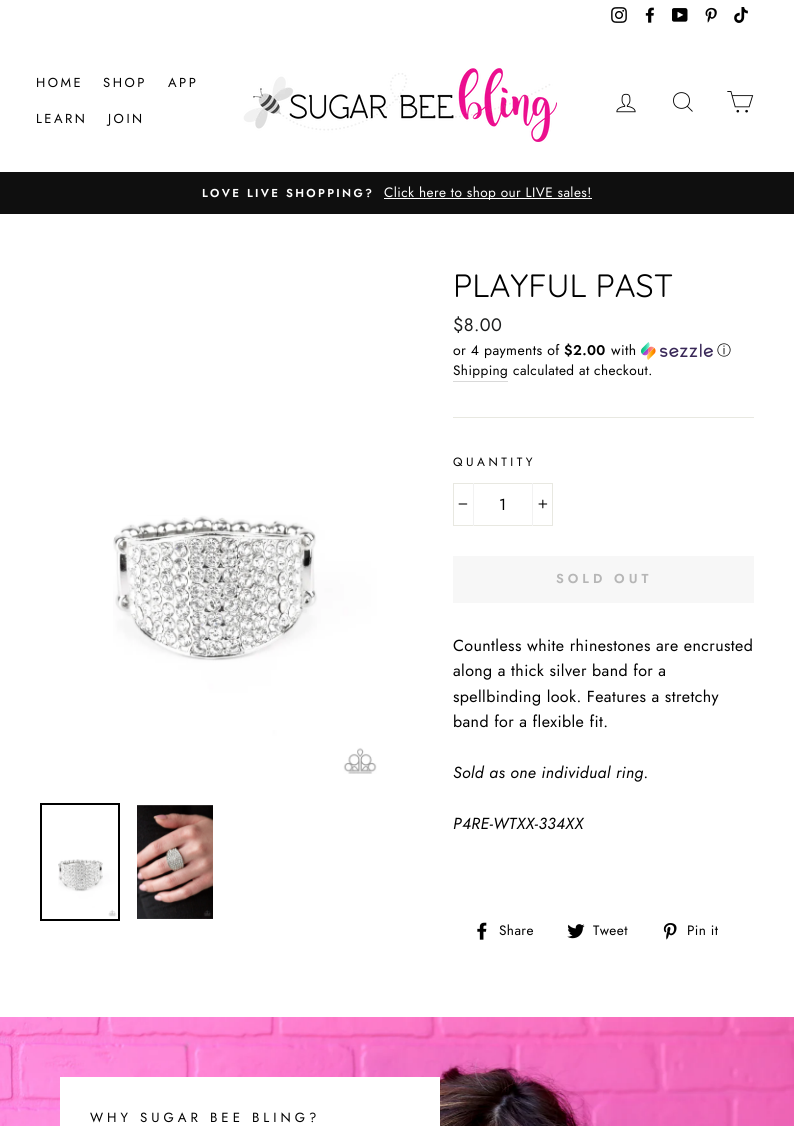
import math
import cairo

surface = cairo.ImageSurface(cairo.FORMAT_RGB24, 794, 1126)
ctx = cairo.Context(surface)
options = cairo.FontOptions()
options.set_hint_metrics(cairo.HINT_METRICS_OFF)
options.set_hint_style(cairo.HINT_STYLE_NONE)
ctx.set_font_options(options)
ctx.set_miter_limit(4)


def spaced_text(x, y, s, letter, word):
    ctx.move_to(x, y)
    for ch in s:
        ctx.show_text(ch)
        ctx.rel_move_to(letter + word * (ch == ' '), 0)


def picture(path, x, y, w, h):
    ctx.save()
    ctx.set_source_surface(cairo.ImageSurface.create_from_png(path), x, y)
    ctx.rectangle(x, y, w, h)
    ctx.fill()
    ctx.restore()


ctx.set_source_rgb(1, 1, 1)
ctx.paint()
picture("img1.png", 611, 7, 16, 16)
picture("img2.png", 645, 7, 9, 16)
picture("img3.png", 672, 8, 16, 14)
picture("img4.png", 705, 7, 12, 16)
picture("img5.png", 734, 7, 14, 16)
ctx.select_font_face("Jost")
ctx.set_font_size(13)
ctx.set_source_rgb(0, 0, 0)
spaced_text(36, 87, "HOME", 2.5, 0)
spaced_text(103, 87, "SHOP", 2.5, 0)
spaced_text(168, 87, "APP", 2.5, 0)
spaced_text(36, 123, "LEARN", 2.5, 0)
spaced_text(108, 123, "JOIN", 2.5, 0)
picture("img6.png", 243, 68, 314, 74)
picture("img7.png", 616, 93, 20, 20)
ctx.new_path()
ctx.move_to(689.5, 100.5)
ctx.curve_to(689.5, 111, 673.5, 111, 673.5, 100.5)
ctx.curve_to(673.5, 90, 689.5, 90, 689.5, 100.5)
ctx.close_path()
ctx.move_to(692.5, 111.5)
ctx.line_to(687.5, 106.5)
ctx.set_line_width(0.9)
ctx.stroke()
picture("img8.png", 727, 91, 27, 22)
ctx.set_source_rgb(0.059, 0.059, 0.059)
ctx.rectangle(0, 172, 794, 42)
ctx.fill()
ctx.select_font_face("Jost SemiBold")
ctx.set_font_size(11.5)
ctx.set_source_rgb(1, 1, 1)
spaced_text(202, 197, "LOVE LIVE SHOPPING?", 2.3, 0)
ctx.rectangle(384, 198, 208, 1)
ctx.fill()
ctx.select_font_face("Jost")
ctx.set_font_size(13.6)
spaced_text(384, 197, "Click here to shop our LIVE sales!", 0.4, 0)
picture("img9.png", 113, 515, 264, 259)
ctx.rectangle(41, 804, 78, 116)
ctx.set_source_rgb(0, 0, 0)
ctx.set_line_width(2)
ctx.stroke()
picture("img10.png", 58, 859, 59, 58)
picture("img11.png", 137, 805, 76, 114)
ctx.select_font_face("Quicksand")
ctx.set_font_size(32.25)
ctx.move_to(453, 297)
ctx.show_text("PLAYFUL PAST")
ctx.select_font_face("Jost")
ctx.set_font_size(18)
ctx.set_source_rgb(0.11, 0.114, 0.114)
spaced_text(453, 331, "$8.00", 0.4, 0)
ctx.set_font_size(14)
ctx.set_source_rgb(0, 0, 0)
spaced_text(453, 355, "or 4 payments of", 0.4, 0)
ctx.select_font_face("Jost SemiBold")
spaced_text(564, 355, "$2.00", 0.4, 0)
ctx.select_font_face("Jost")
spaced_text(611, 355, "with", 0.4, 0)
picture("img12.png", 641, 342, 72, 18)
ctx.select_font_face("WenQuanYi Zen Hei Medium")
spaced_text(717, 355, "ⓘ", 0.4, 0)
ctx.set_source_rgb(0.851, 0.851, 0.851)
ctx.rectangle(453, 381, 55, 1)
ctx.fill()
ctx.select_font_face("Jost")
ctx.set_font_size(13.6)
ctx.set_source_rgb(0, 0, 0)
spaced_text(453, 375, "Shipping", 0.4, 0)
spaced_text(513, 375, "calculated at checkout.", 0.4, 0)
ctx.set_source_rgb(0.91, 0.91, 0.882)
ctx.rectangle(453, 417, 301, 1)
ctx.fill()
ctx.set_font_size(12)
ctx.set_source_rgb(0, 0, 0)
spaced_text(453, 466, "QUANTITY", 3.5, 0)
ctx.rectangle(453.5, 483.5, 99, 42)
ctx.set_source_rgb(0.91, 0.91, 0.882)
ctx.set_line_width(1)
ctx.stroke()
ctx.set_source_rgb(0.949, 0.949, 0.949)
ctx.rectangle(473, 483, 1, 43)
ctx.fill()
picture("img13.png", 458, 503, 10, 2)
ctx.set_font_size(16)
ctx.set_source_rgb(0, 0, 0)
spaced_text(499, 510, "1", 0.4, 0)
ctx.set_source_rgb(0.949, 0.949, 0.949)
ctx.rectangle(532, 483, 1, 43)
ctx.fill()
picture("img14.png", 538, 499, 10, 10)
ctx.set_source_rgb(0.965, 0.965, 0.965)
ctx.rectangle(453, 556, 301, 47)
ctx.fill()
ctx.select_font_face("Jost SemiBold")
ctx.set_font_size(13)
ctx.set_source_rgb(0.714, 0.714, 0.714)
spaced_text(556, 583, "SOLD OUT", 4, 0)
ctx.select_font_face("Jost")
ctx.set_font_size(16)
ctx.set_source_rgb(0, 0, 0)
spaced_text(453, 651, "Countless white rhinestones are encrusted", 0.4, 0)
spaced_text(453, 676, "along a thick silver band for a", 0.4, 0)
spaced_text(453, 702, "spellbinding look. Features a stretchy", 0.4, 0)
spaced_text(453, 727, "band for a flexible fit.", 0.4, 0)
ctx.select_font_face("Jost", cairo.FONT_SLANT_ITALIC)
spaced_text(453, 778, "Sold as one individual ring.", 0.4, 0)
spaced_text(453, 829, "P4RE-WTXX-334XX", 0.4, 0)
picture("img15.png", 477, 922, 10, 18)
ctx.select_font_face("Jost")
ctx.set_font_size(13.6)
spaced_text(499, 935, "Share", 0.4, 0)
picture("img16.png", 567, 924, 18, 15)
spaced_text(593, 935, "Tweet", 0.4, 0)
picture("img17.png", 663, 923, 14, 17)
spaced_text(687, 935, "Pin it", 0.4, 0)
picture("img18.png", 0, 1017, 794, 109)
ctx.set_source_rgb(1, 1, 1)
ctx.rectangle(60, 1077, 380, 49)
ctx.fill()
ctx.set_font_size(13.25)
ctx.set_source_rgb(0, 0, 0)
spaced_text(90, 1122, "WHY SUGAR BEE BLING?", 4, 0)
surface.write_to_png("page.png")
